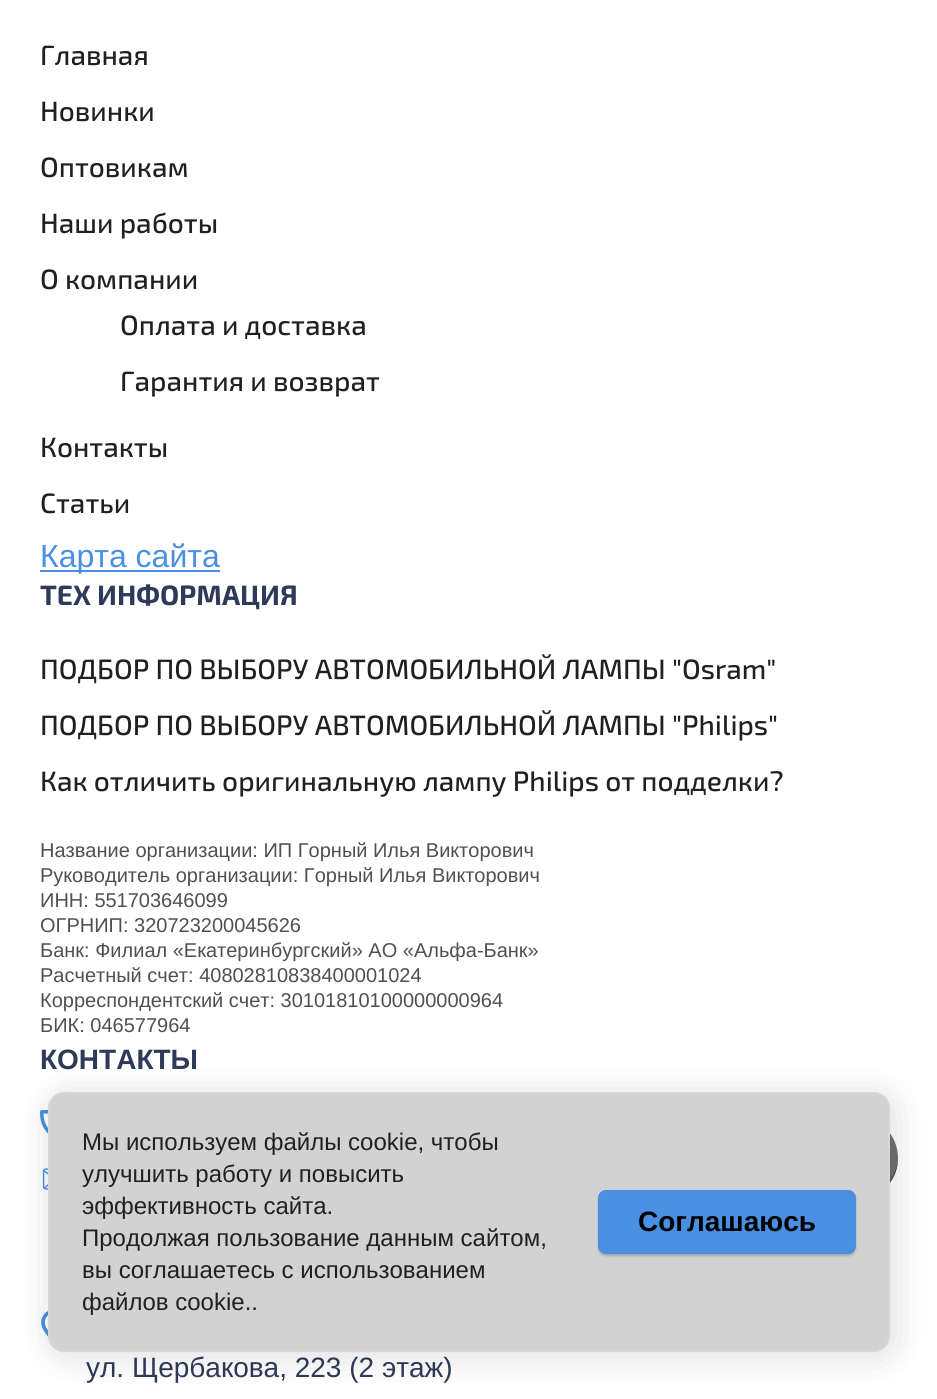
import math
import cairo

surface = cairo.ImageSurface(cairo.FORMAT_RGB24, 937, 1399)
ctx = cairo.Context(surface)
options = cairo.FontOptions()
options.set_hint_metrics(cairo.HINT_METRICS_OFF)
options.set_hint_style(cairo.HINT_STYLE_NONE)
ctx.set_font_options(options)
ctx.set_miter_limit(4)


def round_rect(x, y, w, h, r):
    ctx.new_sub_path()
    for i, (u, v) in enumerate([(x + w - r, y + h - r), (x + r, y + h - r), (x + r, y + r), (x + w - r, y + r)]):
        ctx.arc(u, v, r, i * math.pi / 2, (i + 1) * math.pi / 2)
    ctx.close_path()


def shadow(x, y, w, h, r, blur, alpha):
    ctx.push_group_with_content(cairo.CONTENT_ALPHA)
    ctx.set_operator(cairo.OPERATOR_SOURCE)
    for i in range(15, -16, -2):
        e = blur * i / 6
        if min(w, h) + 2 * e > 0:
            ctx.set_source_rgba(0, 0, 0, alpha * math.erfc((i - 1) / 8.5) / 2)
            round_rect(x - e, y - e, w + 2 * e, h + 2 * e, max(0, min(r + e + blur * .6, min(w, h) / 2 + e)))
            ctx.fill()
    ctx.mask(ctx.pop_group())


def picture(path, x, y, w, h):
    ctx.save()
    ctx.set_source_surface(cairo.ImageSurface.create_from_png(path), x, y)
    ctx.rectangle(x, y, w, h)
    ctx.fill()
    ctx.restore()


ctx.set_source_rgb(1, 1, 1)
ctx.paint()
ctx.select_font_face("Exo 2 Medium")
ctx.set_font_size(28)
ctx.set_source_rgb(0.125, 0.125, 0.125)
ctx.move_to(40, 65)
ctx.show_text("Главная")
ctx.move_to(40, 121)
ctx.show_text("Новинки")
ctx.move_to(40, 177)
ctx.show_text("Оптовикам")
ctx.move_to(40, 233)
ctx.show_text("Наши работы")
ctx.move_to(40, 289)
ctx.show_text("О компании")
ctx.move_to(120, 335)
ctx.show_text("Оплата и доставка")
ctx.move_to(120, 391)
ctx.show_text("Гарантия и возврат")
ctx.move_to(40, 457)
ctx.show_text("Контакты")
ctx.move_to(40, 513)
ctx.show_text("Статьи")
ctx.set_source_rgb(0.29, 0.565, 0.886)
ctx.rectangle(40, 570, 180, 2)
ctx.fill()
ctx.select_font_face("Liberation Sans")
ctx.set_font_size(32)
ctx.move_to(40, 567)
ctx.show_text("Карта сайта")
ctx.select_font_face("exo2", cairo.FONT_SLANT_NORMAL, cairo.FONT_WEIGHT_BOLD)
ctx.set_font_size(28)
ctx.set_source_rgb(0.18, 0.227, 0.349)
ctx.move_to(40, 605)
ctx.show_text("ТЕХ ИНФОРМАЦИЯ")
ctx.select_font_face("Exo 2 Medium")
ctx.set_source_rgb(0.125, 0.125, 0.125)
ctx.move_to(40, 679)
ctx.show_text("ПОДБОР ПО ВЫБОРУ АВТОМОБИЛЬНОЙ ЛАМПЫ \"Osram\"")
ctx.move_to(40, 735)
ctx.show_text("ПОДБОР ПО ВЫБОРУ АВТОМОБИЛЬНОЙ ЛАМПЫ \"Philips\"")
ctx.move_to(40, 791)
ctx.show_text("Как отличить оригинальную лампу Philips от подделки?")
ctx.select_font_face("Liberation Sans")
ctx.set_font_size(20)
ctx.set_source_rgb(0.314, 0.314, 0.314)
ctx.move_to(40, 857)
ctx.show_text("Название организации: ИП Горный Илья Викторович")
ctx.move_to(40, 882)
ctx.show_text("Руководитель организации: Горный Илья Викторович")
ctx.move_to(40, 907)
ctx.show_text("ИНН: 551703646099")
ctx.move_to(40, 932)
ctx.show_text("ОГРНИП: 320723200045626")
ctx.move_to(40, 957)
ctx.show_text("Банк: Филиал «Екатеринбургский» АО «Альфа-Банк»")
ctx.move_to(40, 982)
ctx.show_text("Расчетный счет: 40802810838400001024")
ctx.move_to(40, 1007)
ctx.show_text("Корреспондентский счет: 30101810100000000964")
ctx.move_to(40, 1032)
ctx.show_text("БИК: 046577964")
ctx.select_font_face("Liberation Sans", cairo.FONT_SLANT_NORMAL, cairo.FONT_WEIGHT_BOLD)
ctx.set_font_size(28)
ctx.set_source_rgb(0.18, 0.227, 0.349)
ctx.move_to(40, 1069)
ctx.show_text("КОНТАКТЫ")
picture("img1.png", 40, 1110, 8, 24)
picture("img2.png", 42, 1168, 6, 22)
picture("img3.png", 41, 1311, 8, 27)
ctx.select_font_face("Liberation Sans")
ctx.move_to(86, 1377)
ctx.show_text("ул. Щербакова, 223 (2 этаж)")
ctx.set_source_rgb(0.439, 0.439, 0.439)
round_rect(812, 1116, 86, 84, 42)
ctx.fill()
ctx.set_source_rgb(0.314, 0.314, 0.314)
ctx.new_path()
ctx.move_to(812, 1157)
ctx.curve_to(812, 1166, 814, 1174, 819, 1181)
ctx.curve_to(842, 1216, 899, 1199, 898, 1157)
ctx.curve_to(898, 1165, 895, 1173, 890, 1180)
ctx.curve_to(867, 1213, 813, 1198, 812, 1157)
ctx.close_path()
ctx.fill()
ctx.set_source_rgb(0, 0, 0)
shadow(52, 1096, 842, 260, 16, 18, 0.14)
ctx.set_source_rgb(0.824, 0.824, 0.824)
round_rect(49, 1093, 840, 258, 15)
ctx.fill_preserve()
ctx.set_source_rgb(0.839, 0.839, 0.839)
ctx.stroke()
ctx.set_font_size(24)
ctx.set_source_rgb(0.125, 0.125, 0.125)
ctx.move_to(82, 1150)
ctx.show_text("Мы используем файлы cookie, чтобы")
ctx.move_to(82, 1182)
ctx.show_text("улучшить работу и повысить")
ctx.move_to(82, 1214)
ctx.show_text("эффективность сайта.")
ctx.move_to(82, 1246)
ctx.show_text("Продолжая пользование данным сайтом,")
ctx.move_to(82, 1278)
ctx.show_text("вы соглашаетесь с использованием")
ctx.move_to(82, 1310)
ctx.show_text("файлов cookie..")
ctx.set_source_rgb(0, 0, 0)
shadow(598, 1192, 258, 64, 8, 1, 0.2)
ctx.set_source_rgb(0.29, 0.565, 0.886)
round_rect(599, 1191, 256, 62, 7)
ctx.fill_preserve()
ctx.stroke()
ctx.select_font_face("Liberation Sans", cairo.FONT_SLANT_NORMAL, cairo.FONT_WEIGHT_BOLD)
ctx.set_font_size(28)
ctx.set_source_rgb(0, 0, 0)
ctx.move_to(638, 1231)
ctx.show_text("Соглашаюсь")
surface.write_to_png("page.png")
